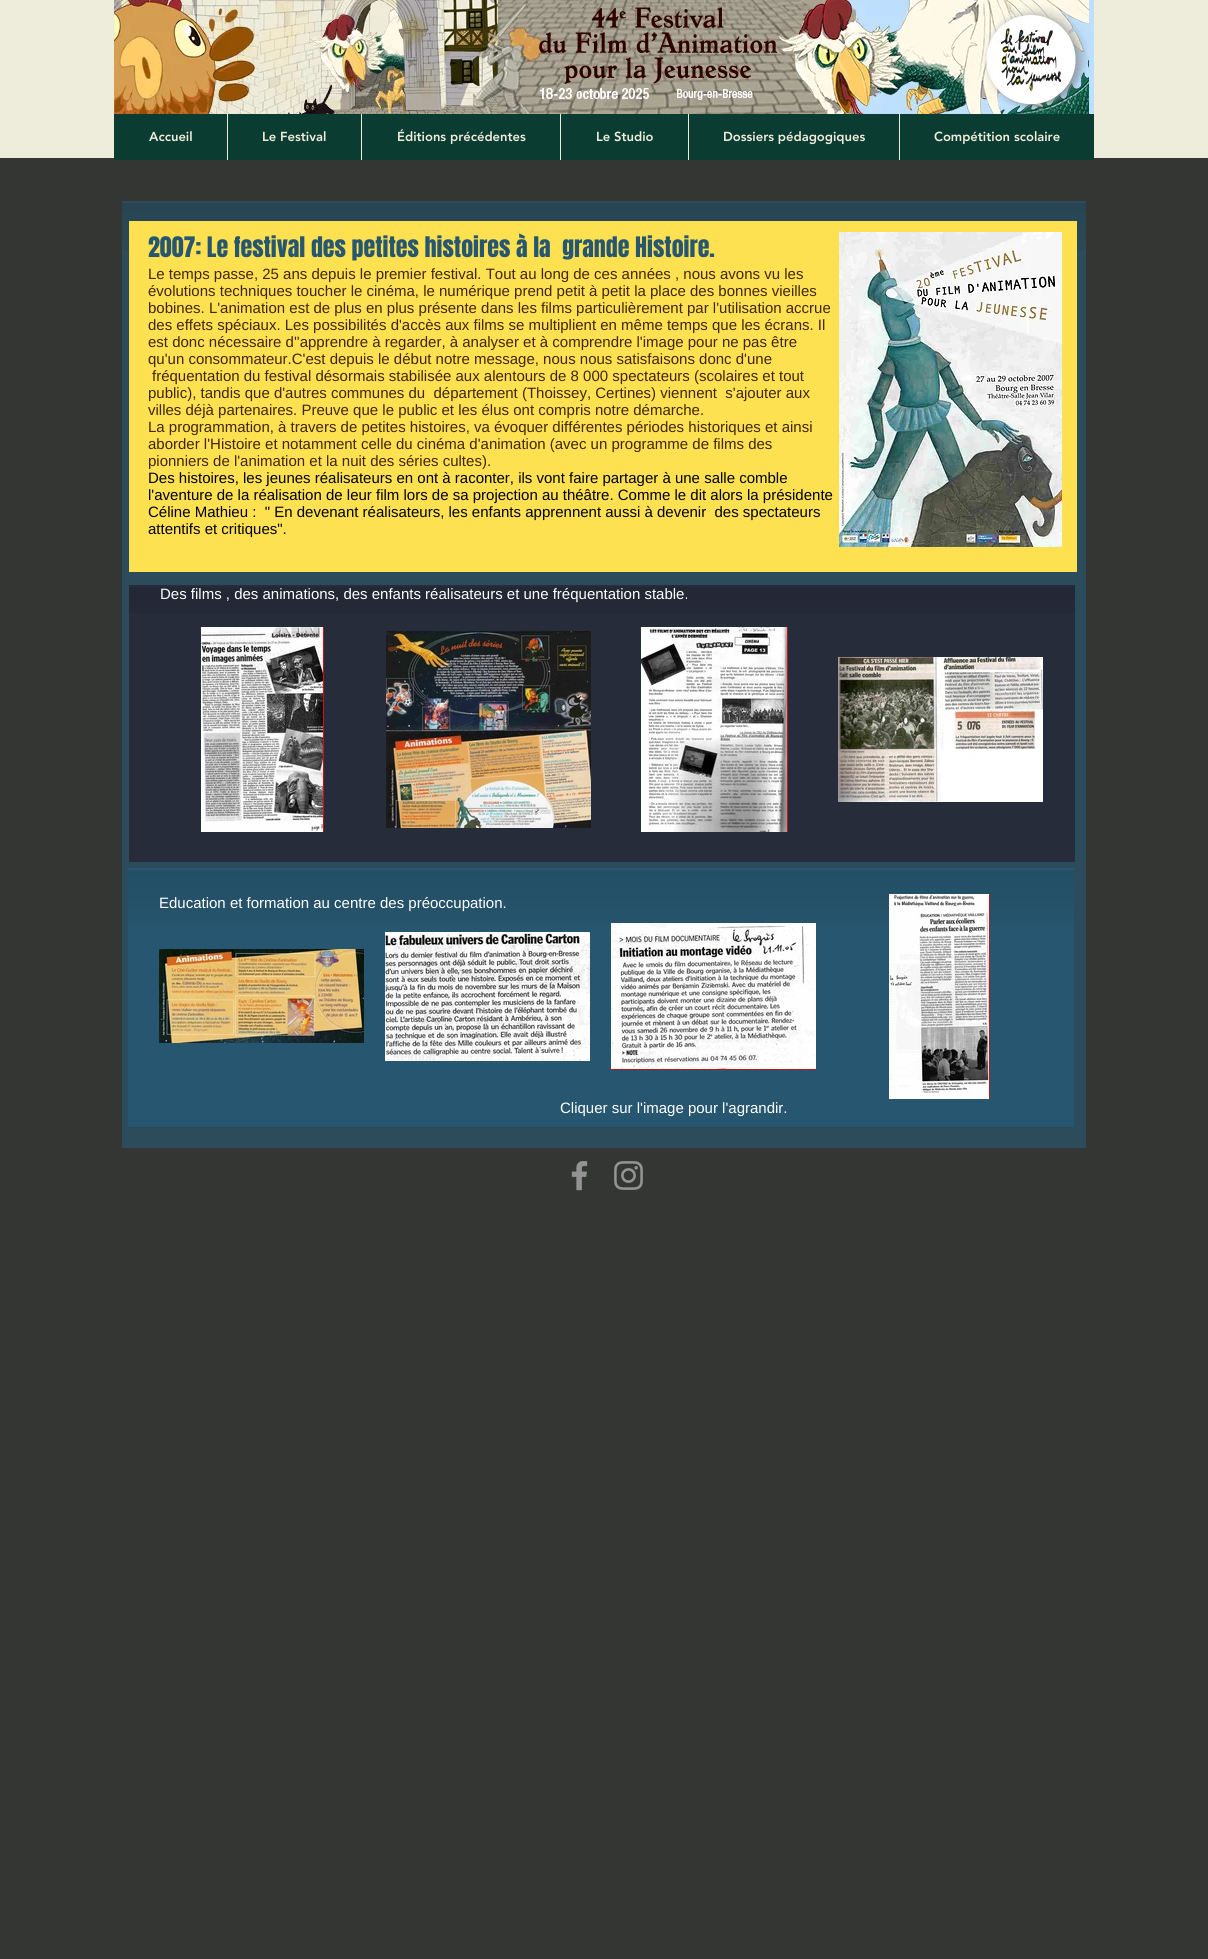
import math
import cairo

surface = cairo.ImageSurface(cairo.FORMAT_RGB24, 1208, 1959)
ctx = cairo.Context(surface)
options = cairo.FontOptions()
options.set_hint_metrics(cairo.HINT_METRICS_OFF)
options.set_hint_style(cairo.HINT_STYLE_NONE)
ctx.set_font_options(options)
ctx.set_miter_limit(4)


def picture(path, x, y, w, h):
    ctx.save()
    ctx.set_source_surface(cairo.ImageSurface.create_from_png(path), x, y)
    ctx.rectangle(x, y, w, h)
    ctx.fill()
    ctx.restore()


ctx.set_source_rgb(0.204, 0.212, 0.2)
ctx.paint()
ctx.set_source_rgb(0.933, 0.922, 0.855)
ctx.rectangle(0, 0, 1208, 158)
ctx.fill()
picture("img1.png", 114, 0, 980, 114)
ctx.set_source_rgb(0.043, 0.235, 0.196)
ctx.rectangle(114, 114, 980, 46)
ctx.fill()
ctx.select_font_face("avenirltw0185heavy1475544 Black")
ctx.set_font_size(13)
ctx.set_source_rgb(0.933, 0.922, 0.855)
ctx.move_to(149, 141)
ctx.show_text("Accueil")
ctx.rectangle(227, 114, 1, 46)
ctx.fill()
ctx.move_to(262, 141)
ctx.show_text("Le Festival")
ctx.rectangle(361, 114, 1, 46)
ctx.fill()
ctx.move_to(397, 141)
ctx.show_text("Éditions précédentes")
ctx.rectangle(560, 114, 1, 46)
ctx.fill()
ctx.move_to(596, 141)
ctx.show_text("Le Studio")
ctx.rectangle(688, 114, 1, 46)
ctx.fill()
ctx.move_to(723, 141)
ctx.show_text("Dossiers pédagogiques")
ctx.rectangle(899, 114, 1, 46)
ctx.fill()
ctx.move_to(934, 141)
ctx.show_text("Compétition scolaire")
ctx.set_source_rgb(0.173, 0.298, 0.357)
ctx.rectangle(122, 201, 964, 947)
ctx.fill()
picture("img2.png", 122, 203, 964, 47)
ctx.set_source_rgb(0.992, 0.882, 0.318)
ctx.rectangle(129, 221, 948, 351)
ctx.fill()
ctx.select_font_face("Anton")
ctx.set_font_size(24)
ctx.set_source_rgb(0.153, 0.341, 0.439)
ctx.move_to(148, 257)
ctx.show_text("2007: Le festival des petites histoires à la  grande Histoire.")
ctx.select_font_face("Liberation Sans")
ctx.set_font_size(15)
ctx.set_source_rgb(0.259, 0.149, 0.039)
ctx.move_to(148, 279)
ctx.show_text("Le temps passe, 25 ans depuis le premier festival. Tout au long de ces années , nous avons vu les")
ctx.move_to(148, 296)
ctx.show_text("évolutions techniques toucher le cinéma, le numérique prend petit à petit la place des bonnes vieilles")
ctx.move_to(148, 313)
ctx.show_text("bobines. L'animation est de plus en plus présente dans les films particulièrement par l'utilisation accrue")
ctx.move_to(148, 330)
ctx.show_text("des effets spéciaux. Les possibilités d'accès aux films se multiplient en même temps que les écrans. Il")
ctx.move_to(148, 347)
ctx.show_text("est donc nécessaire d''apprendre à regarder, à analyser et à comprendre l'image pour ne pas être")
ctx.move_to(148, 364)
ctx.show_text("qu'un consommateur.C'est depuis le début notre message, nous nous satisfaisons donc d'une")
ctx.move_to(152, 381)
ctx.show_text("fréquentation du festival désormais stabilisée aux alentours de 8 000 spectateurs (scolaires et tout")
ctx.move_to(148, 398)
ctx.show_text("public), tandis que d'autres communes du  département (Thoissey, Certines) viennent  s'ajouter aux")
ctx.move_to(148, 415)
ctx.show_text("villes déjà partenaires. Preuve que le public et les élus ont compris notre démarche.")
ctx.move_to(148, 432)
ctx.show_text("La programmation, à travers de petites histoires, va évoquer différentes périodes historiques et ainsi")
ctx.move_to(148, 449)
ctx.show_text("aborder l'Histoire et notamment celle du cinéma d'animation (avec un programme de films des")
ctx.move_to(148, 466)
ctx.show_text("pionniers de l'animation et la nuit des séries cultes).")
ctx.set_source_rgb(0, 0, 0)
ctx.move_to(148, 483)
ctx.show_text("Des histoires, les jeunes réalisateurs en ont à raconter, ils vont faire partager à une salle comble")
ctx.move_to(148, 500)
ctx.show_text("l'aventure de la réalisation de leur film lors de sa projection au théâtre. Comme le dit alors la présidente")
ctx.move_to(148, 517)
ctx.show_text("Céline Mathieu :  \" En devenant réalisateurs, les enfants apprennent aussi à devenir  des spectateurs")
ctx.move_to(148, 534)
ctx.show_text("attentifs et critiques\".")
picture("img3.png", 839, 232, 223, 315)
ctx.set_source_rgb(0.153, 0.173, 0.231)
ctx.rectangle(129, 585, 946, 277)
ctx.fill()
picture("img4.png", 129, 587, 946, 26)
ctx.set_source_rgb(1, 1, 1)
ctx.move_to(160, 599)
ctx.show_text("Des films , des animations, des enfants réalisateurs et une fréquentation stable.")
ctx.set_source_rgb(0.8, 0.063, 0.075)
ctx.rectangle(323, 627, 1, 205)
ctx.fill()
picture("img5.png", 201, 627, 122, 205)
picture("img6.png", 386, 631, 205, 197)
ctx.rectangle(787, 627, 1, 205)
ctx.fill()
picture("img7.png", 641, 627, 146, 205)
picture("img8.png", 838, 657, 205, 145)
ctx.set_source_rgb(0.153, 0.341, 0.439)
ctx.rectangle(128, 868, 946, 259)
ctx.fill()
picture("img9.png", 128, 870, 946, 54)
picture("img10.png", 159, 949, 205, 94)
picture("img11.png", 385, 932, 205, 129)
ctx.set_source_rgb(0.8, 0.063, 0.075)
ctx.rectangle(611, 1069, 205, 1)
ctx.fill()
picture("img12.png", 611, 923, 205, 146)
ctx.rectangle(989, 894, 1, 205)
ctx.fill()
picture("img13.png", 889, 894, 100, 205)
ctx.set_source_rgb(1, 1, 1)
ctx.move_to(159, 908)
ctx.show_text("Education et formation au centre des préoccupation.")
ctx.move_to(560, 1113)
ctx.show_text("Cliquer sur l'image pour l'agrandir.")
picture("img14.png", 571, 1161, 17, 30)
picture("img15.png", 614, 1161, 29, 29)
surface.write_to_png("page.png")
